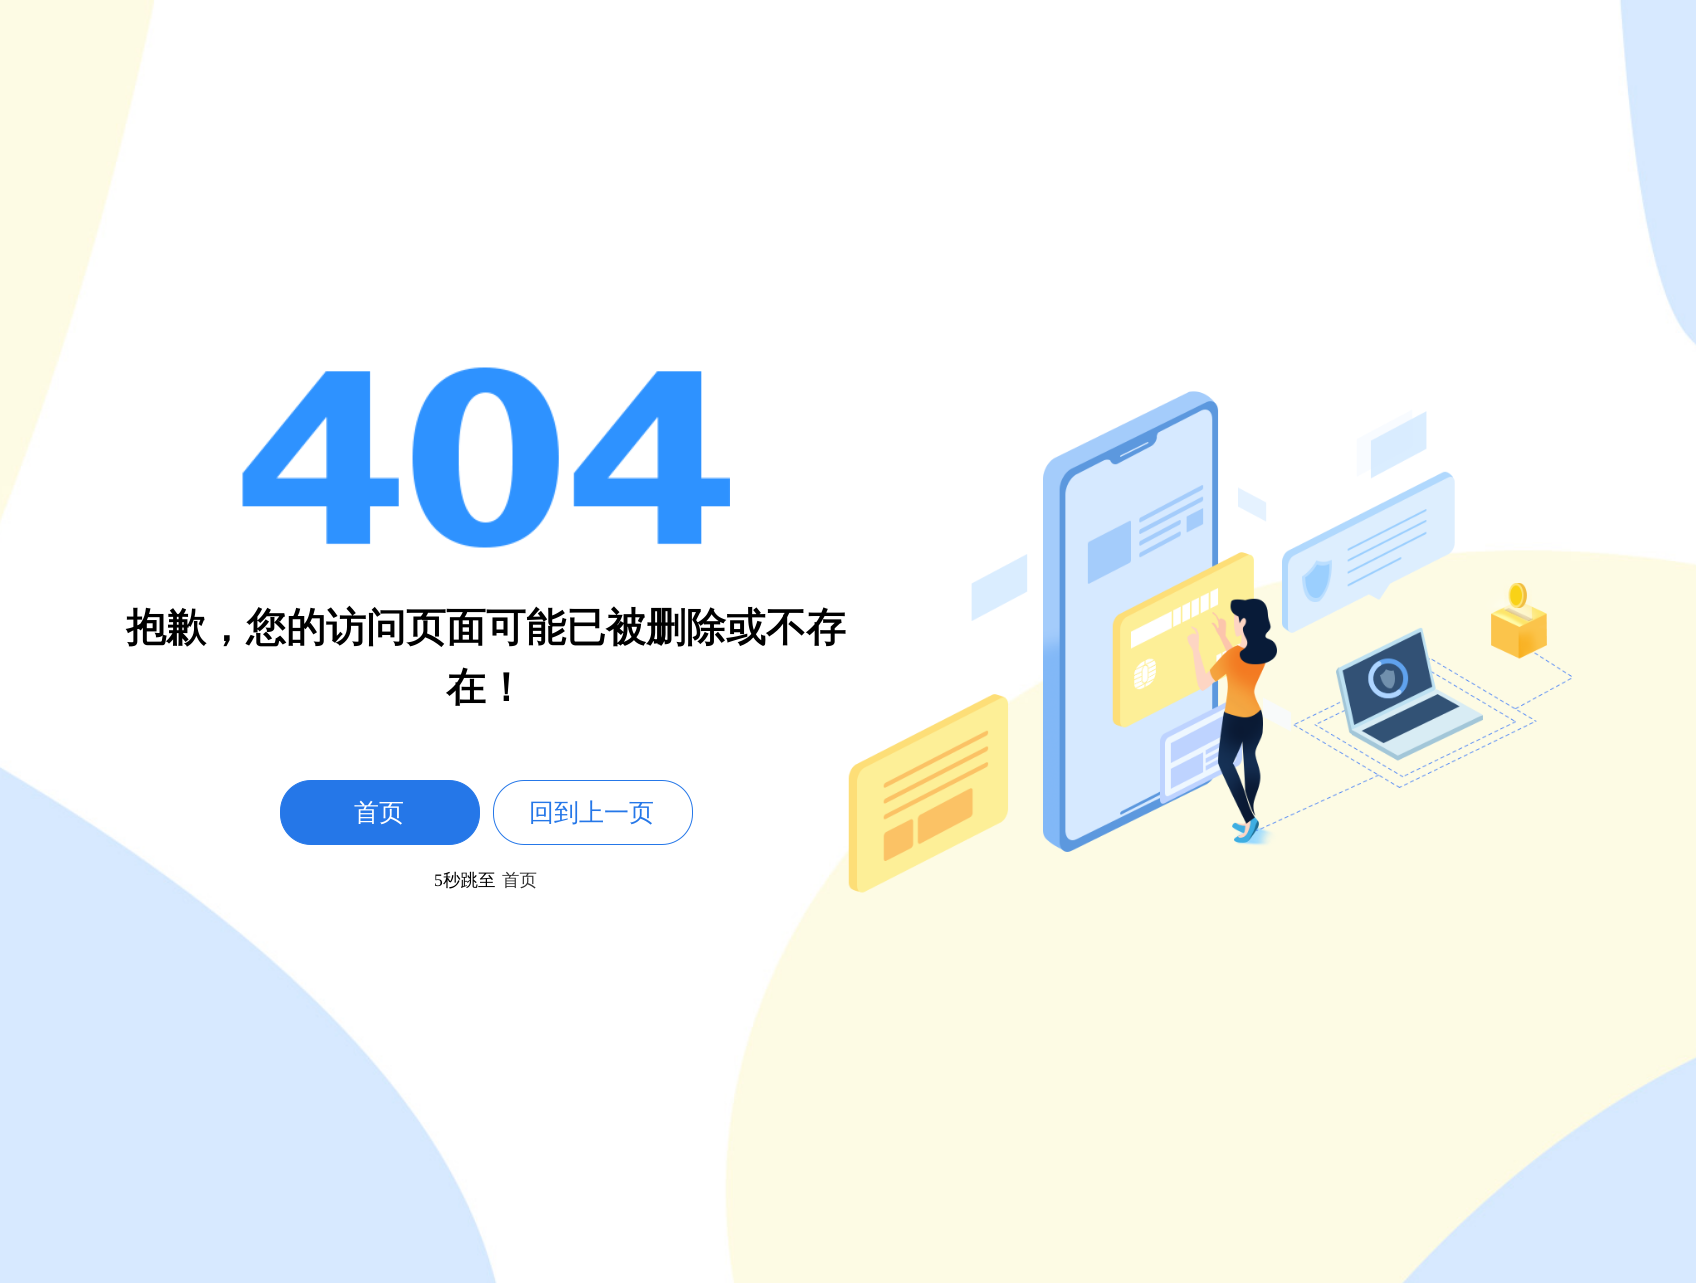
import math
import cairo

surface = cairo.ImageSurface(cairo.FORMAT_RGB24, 1696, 1283)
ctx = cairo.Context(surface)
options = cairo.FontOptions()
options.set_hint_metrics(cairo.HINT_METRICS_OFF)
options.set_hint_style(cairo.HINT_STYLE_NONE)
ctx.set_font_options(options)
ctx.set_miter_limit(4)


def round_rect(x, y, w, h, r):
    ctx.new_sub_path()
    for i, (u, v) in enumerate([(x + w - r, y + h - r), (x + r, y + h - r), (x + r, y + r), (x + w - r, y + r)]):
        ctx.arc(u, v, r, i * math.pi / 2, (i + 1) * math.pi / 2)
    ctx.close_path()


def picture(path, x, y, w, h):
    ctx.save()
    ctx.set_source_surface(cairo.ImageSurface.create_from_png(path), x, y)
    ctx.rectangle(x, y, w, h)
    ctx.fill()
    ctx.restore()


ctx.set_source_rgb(1, 1, 1)
ctx.paint()
picture("img1.png", 0, 0, 1696, 1283)
picture("img2.png", 242, 367, 488, 181)
ctx.select_font_face("WenQuanYi Zen Hei", cairo.FONT_SLANT_NORMAL, cairo.FONT_WEIGHT_BOLD)
ctx.set_font_size(40)
ctx.set_source_rgb(0, 0, 0)
ctx.move_to(126, 641)
ctx.show_text("抱歉，您的访问页面可能已被删除或不存")
ctx.move_to(446, 701)
ctx.show_text("在！")
ctx.set_source_rgb(0.145, 0.467, 0.91)
round_rect(280.5, 780.5, 199, 64, 30.5)
ctx.fill_preserve()
ctx.set_line_width(1)
ctx.stroke()
ctx.select_font_face("WenQuanYi Zen Hei Medium")
ctx.set_font_size(25)
ctx.set_source_rgb(1, 1, 1)
ctx.move_to(354, 821)
ctx.show_text("首页")
round_rect(493.5, 780.5, 199, 64, 30.5)
ctx.set_source_rgb(0.145, 0.467, 0.91)
ctx.stroke()
ctx.move_to(529, 821)
ctx.show_text("回到上一页")
ctx.select_font_face("Liberation Serif")
ctx.set_font_size(17.5)
ctx.set_source_rgb(0, 0, 0)
ctx.move_to(434, 886)
ctx.show_text("5")
ctx.select_font_face("WenQuanYi Zen Hei Medium")
ctx.move_to(443, 886)
ctx.show_text("秒跳至")
ctx.set_source_rgb(0.2, 0.2, 0.2)
ctx.move_to(502, 886)
ctx.show_text("首页")
picture("img3.png", 848, 391, 724, 502)
surface.write_to_png("page.png")
